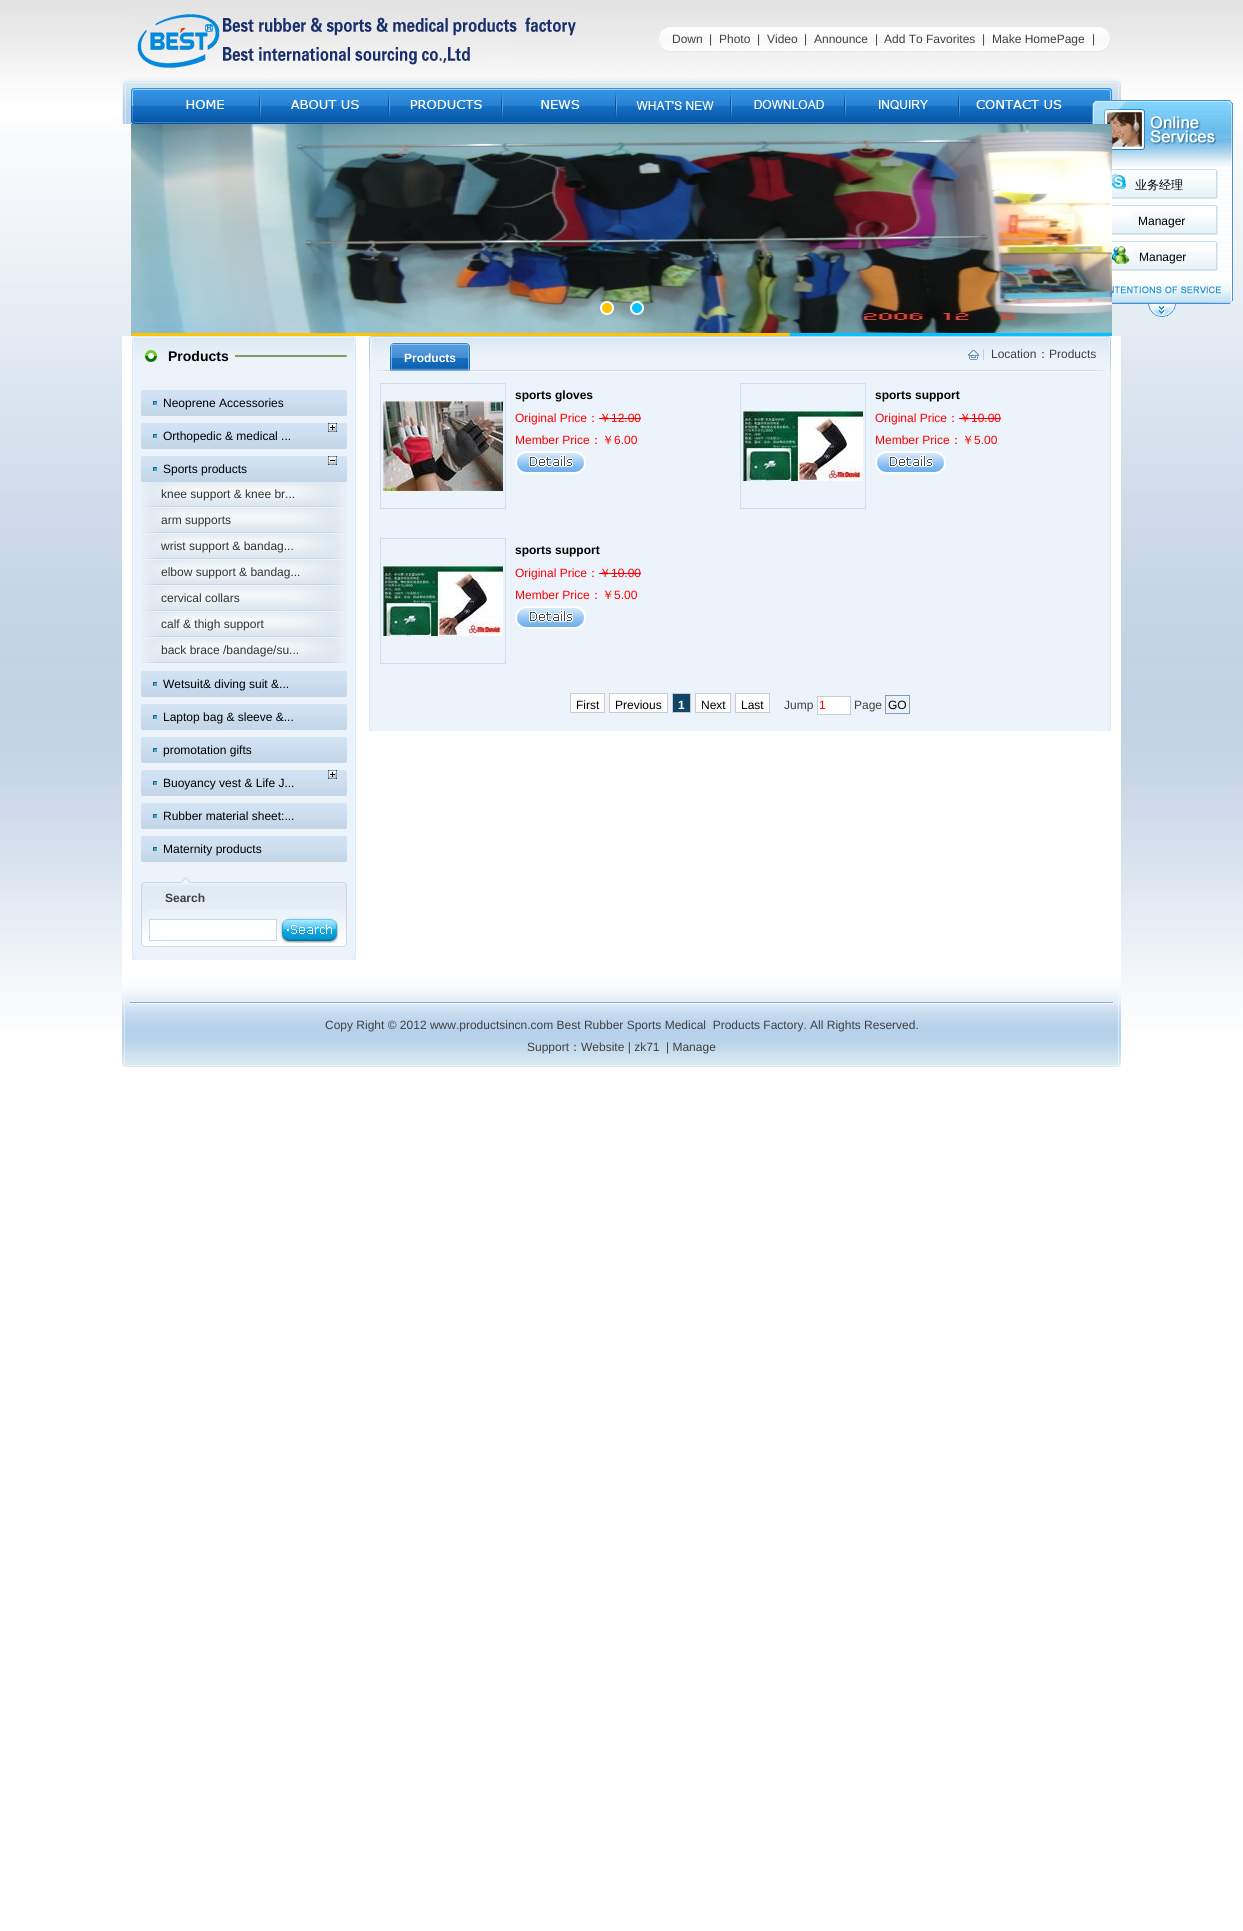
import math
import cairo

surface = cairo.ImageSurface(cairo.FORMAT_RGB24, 1243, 1931)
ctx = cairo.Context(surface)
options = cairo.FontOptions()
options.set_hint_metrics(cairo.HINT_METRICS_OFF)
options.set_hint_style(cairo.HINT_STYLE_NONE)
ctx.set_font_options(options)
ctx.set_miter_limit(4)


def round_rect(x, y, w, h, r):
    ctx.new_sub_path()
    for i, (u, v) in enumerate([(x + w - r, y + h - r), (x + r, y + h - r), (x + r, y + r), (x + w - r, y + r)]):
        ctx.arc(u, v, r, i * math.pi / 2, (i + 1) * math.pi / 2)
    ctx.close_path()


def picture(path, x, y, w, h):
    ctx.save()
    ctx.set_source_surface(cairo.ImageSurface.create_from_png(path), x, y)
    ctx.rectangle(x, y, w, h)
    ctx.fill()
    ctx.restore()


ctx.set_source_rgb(1, 1, 1)
ctx.paint()
picture("img1.png", 0, 0, 1243, 1028)
picture("img2.png", 122, 0, 465, 78)
picture("img3.png", 130, 8, 448, 64)
picture("img4.png", 587, 0, 534, 78)
picture("img5.png", 659, 27, 13, 25)
picture("img6.png", 672, 27, 426, 25)
ctx.select_font_face("Liberation Sans")
ctx.set_font_size(12)
ctx.set_source_rgb(0.251, 0.251, 0.251)
ctx.move_to(672, 43)
ctx.show_text("Down")
ctx.move_to(709, 43)
ctx.show_text("|")
ctx.move_to(719, 43)
ctx.show_text("Photo")
ctx.move_to(757, 43)
ctx.show_text("|")
ctx.move_to(767, 43)
ctx.show_text("Video")
ctx.move_to(804, 43)
ctx.show_text("|")
ctx.move_to(814, 43)
ctx.show_text("Announce")
ctx.move_to(875, 43)
ctx.show_text("|")
ctx.move_to(884, 43)
ctx.show_text("Add To Favorites")
ctx.move_to(982, 43)
ctx.show_text("|")
ctx.move_to(992, 43)
ctx.show_text("Make HomePage")
ctx.move_to(1092, 43)
ctx.show_text("|")
picture("img7.png", 1098, 27, 13, 25)
picture("img8.png", 122, 78, 13, 46)
picture("img9.png", 135, 78, 126, 46)
picture("img10.png", 261, 78, 129, 46)
picture("img11.png", 390, 78, 113, 46)
picture("img12.png", 503, 78, 115, 46)
picture("img13.png", 618, 78, 115, 46)
picture("img14.png", 733, 78, 113, 46)
picture("img15.png", 846, 78, 114, 46)
picture("img16.png", 960, 78, 148, 46)
picture("img17.png", 1108, 78, 13, 22)
picture("img18.png", 131, 124, 98, 42)
picture("img19.png", 229, 124, 98, 42)
picture("img20.png", 327, 124, 98, 42)
picture("img21.png", 425, 124, 98, 42)
picture("img22.png", 523, 124, 98, 42)
picture("img23.png", 621, 124, 99, 42)
picture("img24.png", 720, 124, 98, 42)
picture("img25.png", 818, 124, 98, 42)
picture("img26.png", 916, 124, 98, 42)
picture("img101.png", 1092, 100, 141, 66)
picture("img27.png", 1014, 124, 98, 42)
picture("img28.png", 131, 166, 98, 43)
picture("img29.png", 229, 166, 98, 43)
picture("img30.png", 327, 166, 98, 43)
picture("img31.png", 425, 166, 98, 43)
picture("img32.png", 523, 166, 98, 43)
picture("img33.png", 621, 166, 99, 43)
picture("img34.png", 720, 166, 98, 43)
picture("img35.png", 818, 166, 98, 43)
picture("img36.png", 916, 166, 98, 43)
picture("img37.png", 1014, 166, 98, 43)
picture("img38.png", 131, 209, 98, 42)
picture("img39.png", 229, 209, 98, 42)
picture("img40.png", 327, 209, 98, 42)
picture("img41.png", 425, 209, 98, 42)
picture("img42.png", 523, 209, 98, 42)
picture("img43.png", 621, 209, 99, 42)
picture("img44.png", 720, 209, 98, 42)
picture("img45.png", 818, 209, 98, 42)
picture("img46.png", 916, 209, 98, 42)
picture("img47.png", 1014, 209, 98, 42)
picture("img48.png", 131, 251, 98, 43)
picture("img49.png", 229, 251, 98, 43)
picture("img50.png", 327, 251, 98, 43)
picture("img51.png", 425, 251, 98, 43)
picture("img52.png", 523, 251, 98, 43)
picture("img53.png", 621, 251, 99, 43)
picture("img54.png", 720, 251, 98, 43)
picture("img55.png", 818, 251, 98, 43)
picture("img56.png", 916, 251, 98, 43)
picture("img57.png", 1014, 251, 98, 43)
picture("img58.png", 131, 294, 98, 42)
picture("img59.png", 229, 294, 98, 39)
picture("img60.png", 327, 294, 98, 39)
picture("img61.png", 425, 294, 98, 39)
picture("img62.png", 523, 294, 98, 39)
picture("img63.png", 621, 294, 99, 39)
picture("img64.png", 720, 294, 98, 39)
picture("img65.png", 818, 294, 98, 39)
picture("img66.png", 916, 294, 98, 39)
picture("img67.png", 1014, 294, 98, 42)
ctx.set_source_rgb(1, 0.765, 0)
ctx.arc(607, 308, 6, 0, 2 * math.pi)
ctx.fill_preserve()
ctx.set_source_rgb(1, 1, 1)
ctx.stroke()
ctx.set_source_rgb(0, 0.765, 1)
ctx.arc(637, 308, 6, 0, 2 * math.pi)
ctx.fill_preserve()
ctx.set_source_rgb(1, 1, 1)
ctx.stroke()
ctx.set_source_rgb(0, 0.765, 1)
round_rect(131, 333, 981, 3, 1.5)
ctx.fill()
ctx.set_source_rgb(1, 0.765, 0)
round_rect(131, 333, 659, 3, 1.5)
ctx.fill()
ctx.set_source_rgb(1, 1, 1)
ctx.rectangle(122, 336, 999, 638)
ctx.fill()
picture("img68.png", 132, 336, 30, 47)
picture("img69.png", 162, 336, 73, 47)
ctx.select_font_face("Liberation Sans", cairo.FONT_SLANT_NORMAL, cairo.FONT_WEIGHT_BOLD)
ctx.set_font_size(14)
ctx.set_source_rgb(0, 0, 0)
ctx.move_to(168, 361)
ctx.show_text("Products")
picture("img70.png", 235, 336, 108, 47)
picture("img71.png", 343, 336, 13, 47)
ctx.set_source_rgb(0.925, 0.953, 0.98)
ctx.rectangle(133, 383, 222, 574)
ctx.fill()
ctx.set_source_rgb(0.867, 0.918, 0.965)
ctx.rectangle(355, 383, 1, 574)
ctx.fill()
ctx.rectangle(132, 383, 1, 574)
ctx.fill()
picture("img72.png", 141, 390, 206, 26)
ctx.select_font_face("Liberation Sans")
ctx.set_font_size(12)
ctx.set_source_rgb(0, 0, 0)
ctx.move_to(163, 407)
ctx.show_text("Neoprene Accessories")
picture("img72.png", 141, 423, 206, 26)
picture("img73.png", 328, 423, 9, 9)
ctx.move_to(163, 440)
ctx.show_text("Orthopedic & medical ...")
picture("img72.png", 141, 456, 206, 26)
picture("img74.png", 328, 456, 9, 9)
ctx.move_to(163, 473)
ctx.show_text("Sports products")
picture("img75.png", 141, 482, 206, 25)
ctx.set_source_rgb(0.2, 0.2, 0.2)
ctx.move_to(161, 498)
ctx.show_text("knee support & knee br...")
picture("img75.png", 141, 508, 206, 25)
ctx.move_to(161, 524)
ctx.show_text("arm supports")
picture("img75.png", 141, 534, 206, 25)
ctx.move_to(161, 550)
ctx.show_text("wrist support & bandag...")
picture("img75.png", 141, 560, 206, 25)
ctx.move_to(161, 576)
ctx.show_text("elbow support & bandag...")
picture("img75.png", 141, 586, 206, 25)
ctx.move_to(161, 602)
ctx.show_text("cervical collars")
picture("img75.png", 141, 612, 206, 25)
ctx.move_to(161, 628)
ctx.show_text("calf & thigh support")
picture("img75.png", 141, 638, 206, 25)
ctx.move_to(161, 654)
ctx.show_text("back brace /bandage/su...")
picture("img72.png", 141, 671, 206, 26)
ctx.set_source_rgb(0, 0, 0)
ctx.move_to(163, 688)
ctx.show_text("Wetsuit& diving suit &...")
picture("img72.png", 141, 704, 206, 26)
ctx.move_to(163, 721)
ctx.show_text("Laptop bag & sleeve &...")
picture("img72.png", 141, 737, 206, 26)
ctx.move_to(163, 754)
ctx.show_text("promotation gifts")
picture("img72.png", 141, 770, 206, 26)
picture("img73.png", 328, 770, 9, 9)
ctx.move_to(163, 787)
ctx.show_text("Buoyancy vest & Life J...")
picture("img72.png", 141, 803, 206, 26)
ctx.move_to(163, 820)
ctx.show_text("Rubber material sheet:...")
picture("img72.png", 141, 836, 206, 26)
ctx.move_to(163, 853)
ctx.show_text("Maternity products")
picture("img76.png", 141, 882, 8, 30)
picture("img77.png", 149, 877, 73, 33)
ctx.select_font_face("Liberation Sans", cairo.FONT_SLANT_NORMAL, cairo.FONT_WEIGHT_BOLD)
ctx.set_source_rgb(0.251, 0.251, 0.251)
ctx.move_to(165, 902)
ctx.show_text("Search")
picture("img78.png", 222, 882, 116, 28)
picture("img79.png", 338, 882, 9, 30)
picture("img80.png", 141, 912, 8, 35)
picture("img81.png", 149, 923, 189, 24)
ctx.set_source_rgb(1, 1, 1)
ctx.rectangle(149.5, 919.5, 127, 21)
ctx.fill_preserve()
ctx.set_source_rgb(0.776, 0.851, 0.918)
ctx.set_line_width(1)
ctx.stroke()
picture("img82.png", 280, 918, 58, 25)
picture("img83.png", 338, 912, 9, 35)
ctx.set_source_rgb(0.886, 0.933, 0.973)
ctx.rectangle(132, 957, 3, 3)
ctx.fill()
ctx.set_source_rgb(0.925, 0.953, 0.98)
ctx.rectangle(135, 957, 218, 3)
ctx.fill()
ctx.set_source_rgb(0.886, 0.933, 0.973)
ctx.rectangle(353, 957, 3, 3)
ctx.fill()
picture("img84.png", 369, 336, 25, 37)
picture("img85.png", 394, 336, 72, 37)
ctx.set_source_rgb(1, 1, 1)
ctx.move_to(404, 362)
ctx.show_text("Products")
picture("img86.png", 466, 336, 4, 37)
picture("img87.png", 470, 336, 626, 37)
picture("img88.png", 968, 349, 16, 11)
ctx.select_font_face("Liberation Sans")
ctx.set_source_rgb(0.251, 0.251, 0.251)
ctx.move_to(991, 358)
ctx.show_text("Location")
ctx.select_font_face("WenQuanYi Zen Hei Medium")
ctx.move_to(1037, 358)
ctx.show_text("：")
ctx.select_font_face("Liberation Sans")
ctx.move_to(1049, 358)
ctx.show_text("Products")
picture("img89.png", 1096, 336, 15, 37)
ctx.set_source_rgb(0.925, 0.953, 0.98)
ctx.rectangle(370, 373, 740, 355)
ctx.fill()
ctx.set_source_rgb(0.867, 0.918, 0.965)
ctx.rectangle(1110, 373, 1, 355)
ctx.fill()
ctx.rectangle(369, 373, 1, 355)
ctx.fill()
ctx.rectangle(380.5, 383.5, 125, 125)
ctx.set_source_rgb(0.8, 0.875, 0.941)
ctx.stroke()
picture("img90.png", 383, 401, 120, 90)
ctx.select_font_face("Liberation Sans", cairo.FONT_SLANT_NORMAL, cairo.FONT_WEIGHT_BOLD)
ctx.set_source_rgb(0, 0, 0)
ctx.move_to(515, 399)
ctx.show_text("sports gloves")
ctx.select_font_face("Liberation Sans")
ctx.set_source_rgb(1, 0, 0)
ctx.move_to(515, 422)
ctx.show_text("Original Price")
ctx.select_font_face("WenQuanYi Zen Hei Medium")
ctx.move_to(587, 422)
ctx.show_text("：￥")
ctx.select_font_face("Liberation Sans")
ctx.move_to(611, 422)
ctx.show_text("12.00")
ctx.rectangle(599, 418, 42, 1)
ctx.fill()
ctx.move_to(515, 444)
ctx.show_text("Member Price")
ctx.select_font_face("WenQuanYi Zen Hei Medium")
ctx.move_to(590, 444)
ctx.show_text("：￥")
ctx.select_font_face("Liberation Sans")
ctx.move_to(614, 444)
ctx.show_text("6.00")
picture("img91.png", 515, 451, 71, 23)
ctx.rectangle(740.5, 383.5, 125, 125)
ctx.set_source_rgb(0.8, 0.875, 0.941)
ctx.stroke()
picture("img92.png", 743, 411, 120, 70)
ctx.select_font_face("Liberation Sans", cairo.FONT_SLANT_NORMAL, cairo.FONT_WEIGHT_BOLD)
ctx.set_source_rgb(0, 0, 0)
ctx.move_to(875, 399)
ctx.show_text("sports support")
ctx.select_font_face("Liberation Sans")
ctx.set_source_rgb(1, 0, 0)
ctx.move_to(875, 422)
ctx.show_text("Original Price")
ctx.select_font_face("WenQuanYi Zen Hei Medium")
ctx.move_to(947, 422)
ctx.show_text("：￥")
ctx.select_font_face("Liberation Sans")
ctx.move_to(971, 422)
ctx.show_text("10.00")
ctx.rectangle(959, 418, 42, 1)
ctx.fill()
ctx.move_to(875, 444)
ctx.show_text("Member Price")
ctx.select_font_face("WenQuanYi Zen Hei Medium")
ctx.move_to(950, 444)
ctx.show_text("：￥")
ctx.select_font_face("Liberation Sans")
ctx.move_to(974, 444)
ctx.show_text("5.00")
picture("img91.png", 875, 451, 71, 23)
ctx.rectangle(380.5, 538.5, 125, 125)
ctx.set_source_rgb(0.8, 0.875, 0.941)
ctx.stroke()
picture("img92.png", 383, 566, 120, 70)
ctx.select_font_face("Liberation Sans", cairo.FONT_SLANT_NORMAL, cairo.FONT_WEIGHT_BOLD)
ctx.set_source_rgb(0, 0, 0)
ctx.move_to(515, 554)
ctx.show_text("sports support")
ctx.select_font_face("Liberation Sans")
ctx.set_source_rgb(1, 0, 0)
ctx.move_to(515, 577)
ctx.show_text("Original Price")
ctx.select_font_face("WenQuanYi Zen Hei Medium")
ctx.move_to(587, 577)
ctx.show_text("：￥")
ctx.select_font_face("Liberation Sans")
ctx.move_to(611, 577)
ctx.show_text("10.00")
ctx.rectangle(599, 573, 42, 1)
ctx.fill()
ctx.move_to(515, 599)
ctx.show_text("Member Price")
ctx.select_font_face("WenQuanYi Zen Hei Medium")
ctx.move_to(590, 599)
ctx.show_text("：￥")
ctx.select_font_face("Liberation Sans")
ctx.move_to(614, 599)
ctx.show_text("5.00")
picture("img91.png", 515, 606, 71, 23)
ctx.set_source_rgb(1, 1, 1)
ctx.rectangle(570.5, 693.5, 34, 19)
ctx.fill_preserve()
ctx.set_source_rgb(0.8, 0.8, 0.8)
ctx.stroke()
ctx.set_source_rgb(0, 0, 0)
ctx.move_to(576, 709)
ctx.show_text("First")
ctx.set_source_rgb(1, 1, 1)
ctx.rectangle(609.5, 693.5, 58, 19)
ctx.fill_preserve()
ctx.set_source_rgb(0.8, 0.8, 0.8)
ctx.stroke()
ctx.set_source_rgb(0, 0, 0)
ctx.move_to(615, 709)
ctx.show_text("Previous")
ctx.set_source_rgb(0.059, 0.267, 0.4)
ctx.rectangle(672.5, 693.5, 18, 19)
ctx.fill_preserve()
ctx.set_source_rgb(0.8, 0.8, 0.8)
ctx.stroke()
ctx.select_font_face("Liberation Sans", cairo.FONT_SLANT_NORMAL, cairo.FONT_WEIGHT_BOLD)
ctx.set_source_rgb(1, 1, 1)
ctx.move_to(678, 709)
ctx.show_text("1")
ctx.rectangle(695.5, 693.5, 35, 19)
ctx.fill_preserve()
ctx.set_source_rgb(0.8, 0.8, 0.8)
ctx.stroke()
ctx.select_font_face("Liberation Sans")
ctx.set_source_rgb(0, 0, 0)
ctx.move_to(701, 709)
ctx.show_text("Next")
ctx.set_source_rgb(1, 1, 1)
ctx.rectangle(735.5, 693.5, 34, 19)
ctx.fill_preserve()
ctx.set_source_rgb(0.8, 0.8, 0.8)
ctx.stroke()
ctx.set_source_rgb(0, 0, 0)
ctx.move_to(741, 709)
ctx.show_text("Last")
ctx.set_source_rgb(0.251, 0.251, 0.251)
ctx.move_to(784, 709)
ctx.show_text("Jump")
ctx.set_source_rgb(1, 1, 1)
ctx.rectangle(817.5, 696.5, 33, 18)
ctx.fill_preserve()
ctx.set_source_rgb(0.8, 0.8, 0.8)
ctx.stroke()
ctx.set_source_rgb(1, 0, 0)
ctx.move_to(819, 709)
ctx.show_text("1")
ctx.set_source_rgb(0.251, 0.251, 0.251)
ctx.move_to(854, 709)
ctx.show_text("Page")
ctx.set_source_rgb(0.929, 0.949, 0.969)
ctx.rectangle(885.5, 695.5, 24, 18)
ctx.fill_preserve()
ctx.set_source_rgb(0.482, 0.62, 0.741)
ctx.stroke()
ctx.set_source_rgb(0, 0, 0)
ctx.move_to(888, 709)
ctx.show_text("GO")
ctx.set_source_rgb(0.886, 0.933, 0.973)
ctx.rectangle(369, 728, 3, 3)
ctx.fill()
ctx.set_source_rgb(0.925, 0.953, 0.98)
ctx.rectangle(372, 728, 736, 3)
ctx.fill()
ctx.set_source_rgb(0.886, 0.933, 0.973)
ctx.rectangle(1108, 728, 3, 3)
ctx.fill()
picture("img93.png", 122, 974, 9, 30)
picture("img94.png", 131, 974, 981, 29)
picture("img95.png", 1112, 974, 9, 30)
picture("img96.png", 122, 1004, 9, 2)
picture("img97.png", 122, 1006, 9, 61)
ctx.set_source_rgb(0.863, 0.914, 0.965)
ctx.rectangle(131, 1004, 981, 1)
ctx.fill()
picture("img98.png", 131, 1005, 981, 62)
ctx.set_source_rgb(0.251, 0.251, 0.251)
ctx.move_to(325, 1029)
ctx.show_text("Copy Right © 2012 www.productsincn.com Best Rubber Sports Medical  Products Factory. All Rights Reserved.")
ctx.move_to(527, 1051)
ctx.show_text("Support")
ctx.select_font_face("WenQuanYi Zen Hei Medium")
ctx.move_to(569, 1051)
ctx.show_text("：")
ctx.select_font_face("Liberation Sans")
ctx.move_to(581, 1051)
ctx.show_text("Website | zk71")
ctx.move_to(666, 1051)
ctx.show_text("| Manage")
picture("img99.png", 1112, 1004, 9, 2)
picture("img100.png", 1112, 1006, 9, 61)
picture("img102.png", 1112, 166, 121, 108)
picture("img103.png", 1112, 169, 106, 2)
picture("img104.png", 1112, 171, 106, 25)
picture("img105.png", 1112, 180, 104, 16)
picture("img106.png", 1129, 176, 3, 10)
picture("img107.png", 1112, 174, 14, 15)
picture("img108.png", 1132, 176, 51, 10)
ctx.select_font_face("WenQuanYi Zen Hei Medium")
ctx.set_source_rgb(0, 0, 0)
ctx.move_to(1135, 189)
ctx.show_text("业务经理")
picture("img109.png", 1112, 196, 106, 3)
picture("img103.png", 1112, 205, 106, 2)
picture("img104.png", 1112, 207, 106, 25)
picture("img105.png", 1112, 216, 104, 16)
picture("img106.png", 1132, 212, 3, 10)
picture("img110.png", 1135, 212, 50, 10)
ctx.select_font_face("Liberation Sans")
ctx.move_to(1138, 225)
ctx.show_text("Manager")
picture("img109.png", 1112, 232, 106, 3)
picture("img103.png", 1112, 241, 106, 2)
picture("img104.png", 1112, 243, 106, 25)
picture("img105.png", 1112, 252, 104, 16)
picture("img106.png", 1133, 248, 3, 10)
picture("img111.png", 1112, 246, 18, 18)
picture("img110.png", 1136, 248, 50, 10)
ctx.move_to(1139, 261)
ctx.show_text("Manager")
picture("img109.png", 1112, 268, 106, 3)
picture("img112.png", 1112, 274, 121, 30)
picture("img113.png", 1148, 304, 28, 13)
surface.write_to_png("page.png")
